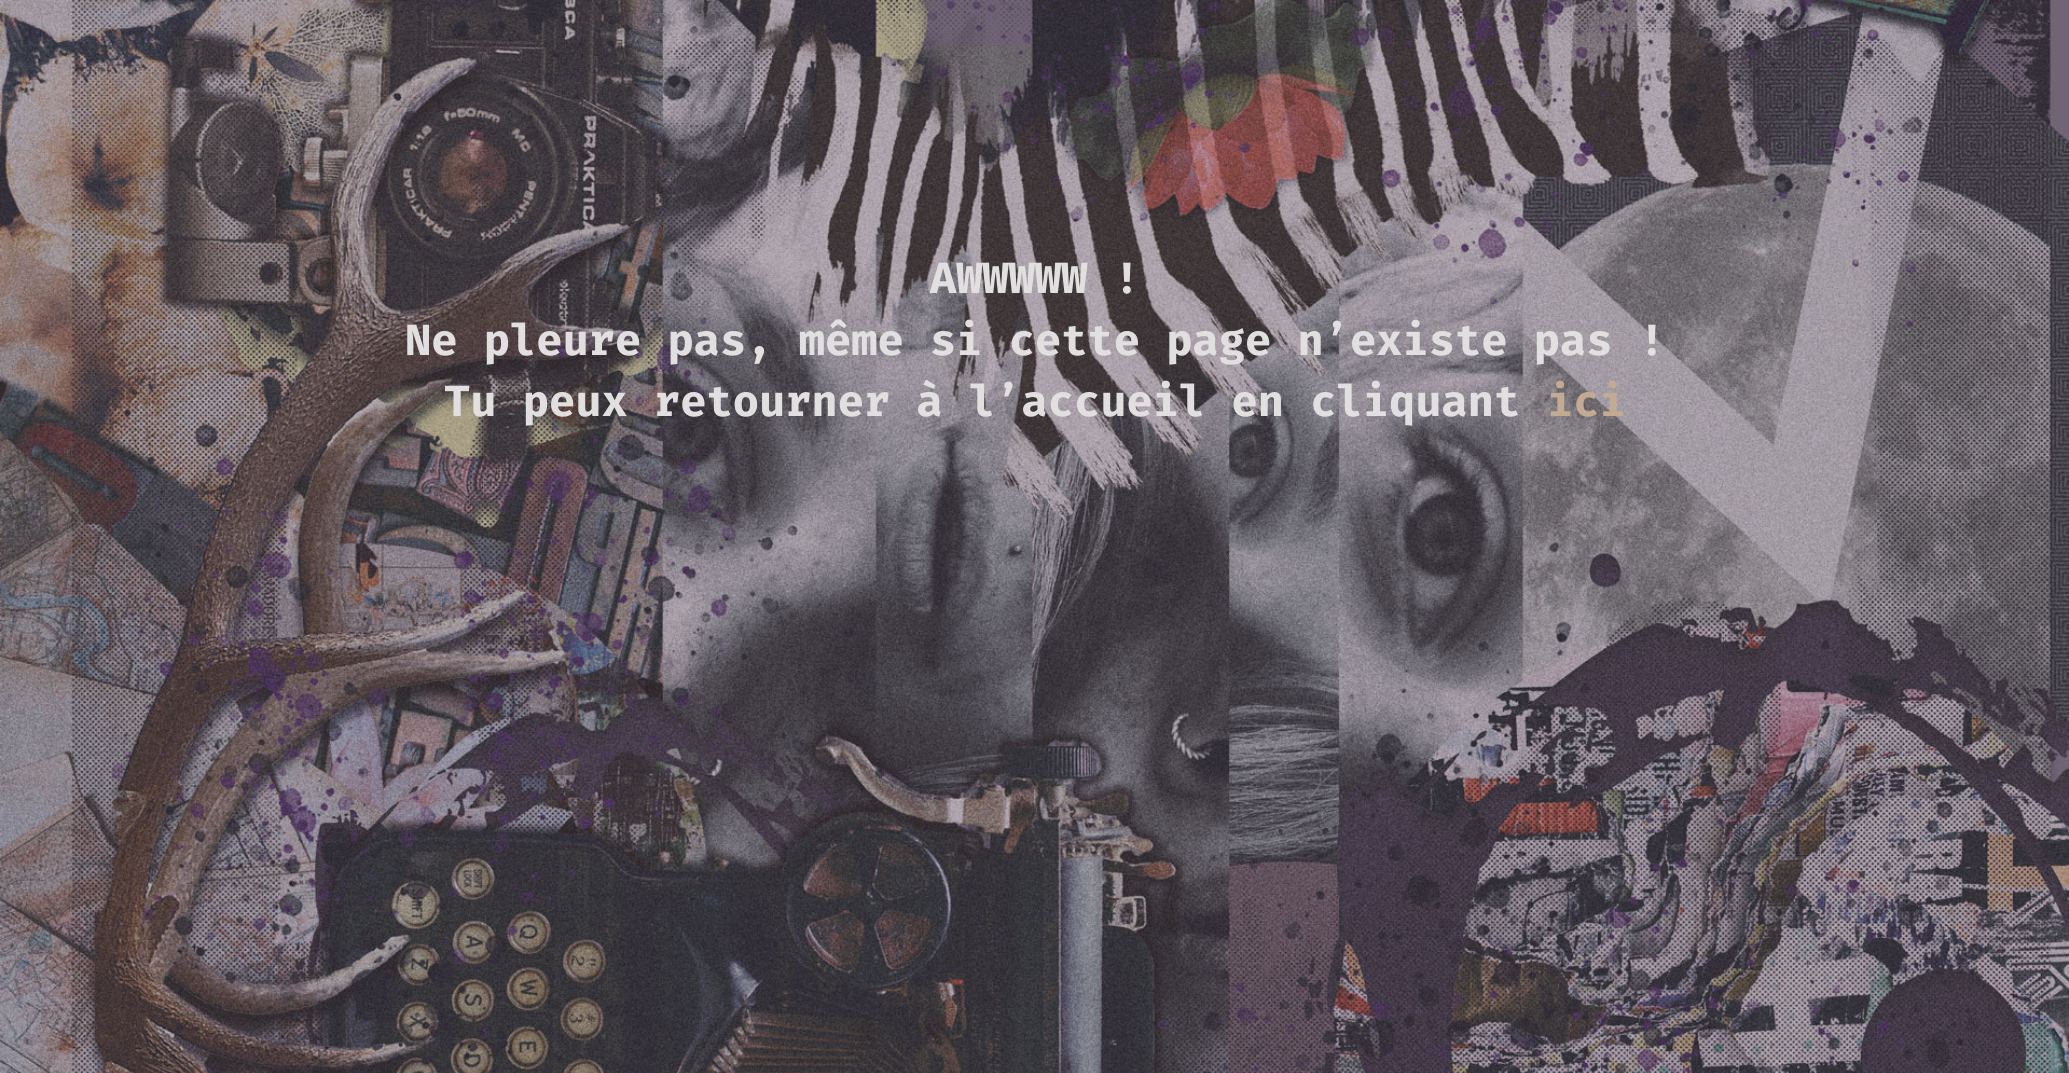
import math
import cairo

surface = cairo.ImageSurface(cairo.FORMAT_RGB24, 2069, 1073)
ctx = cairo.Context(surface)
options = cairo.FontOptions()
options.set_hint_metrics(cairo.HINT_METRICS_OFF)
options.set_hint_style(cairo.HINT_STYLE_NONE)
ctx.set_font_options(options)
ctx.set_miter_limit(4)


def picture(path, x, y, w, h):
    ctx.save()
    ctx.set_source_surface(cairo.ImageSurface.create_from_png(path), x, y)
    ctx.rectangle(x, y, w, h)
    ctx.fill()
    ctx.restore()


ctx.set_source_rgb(1, 1, 1)
ctx.paint()
picture("img1.png", 0, 0, 2069, 1073)
ctx.select_font_face("Fira Mono", cairo.FONT_SLANT_NORMAL, cairo.FONT_WEIGHT_BOLD)
ctx.set_font_size(43.75)
ctx.set_source_rgb(0.882, 0.875, 0.878)
ctx.move_to(930, 293)
ctx.show_text("AWWWWW !")
ctx.move_to(405, 355)
ctx.show_text("Ne pleure pas, même si cette page n’existe pas !")
ctx.move_to(444, 416)
ctx.show_text("Tu peux retourner à l’accueil en cliquant")
ctx.set_source_rgb(0.761, 0.671, 0.573)
ctx.move_to(1547, 416)
ctx.show_text("ici")
surface.write_to_png("page.png")
